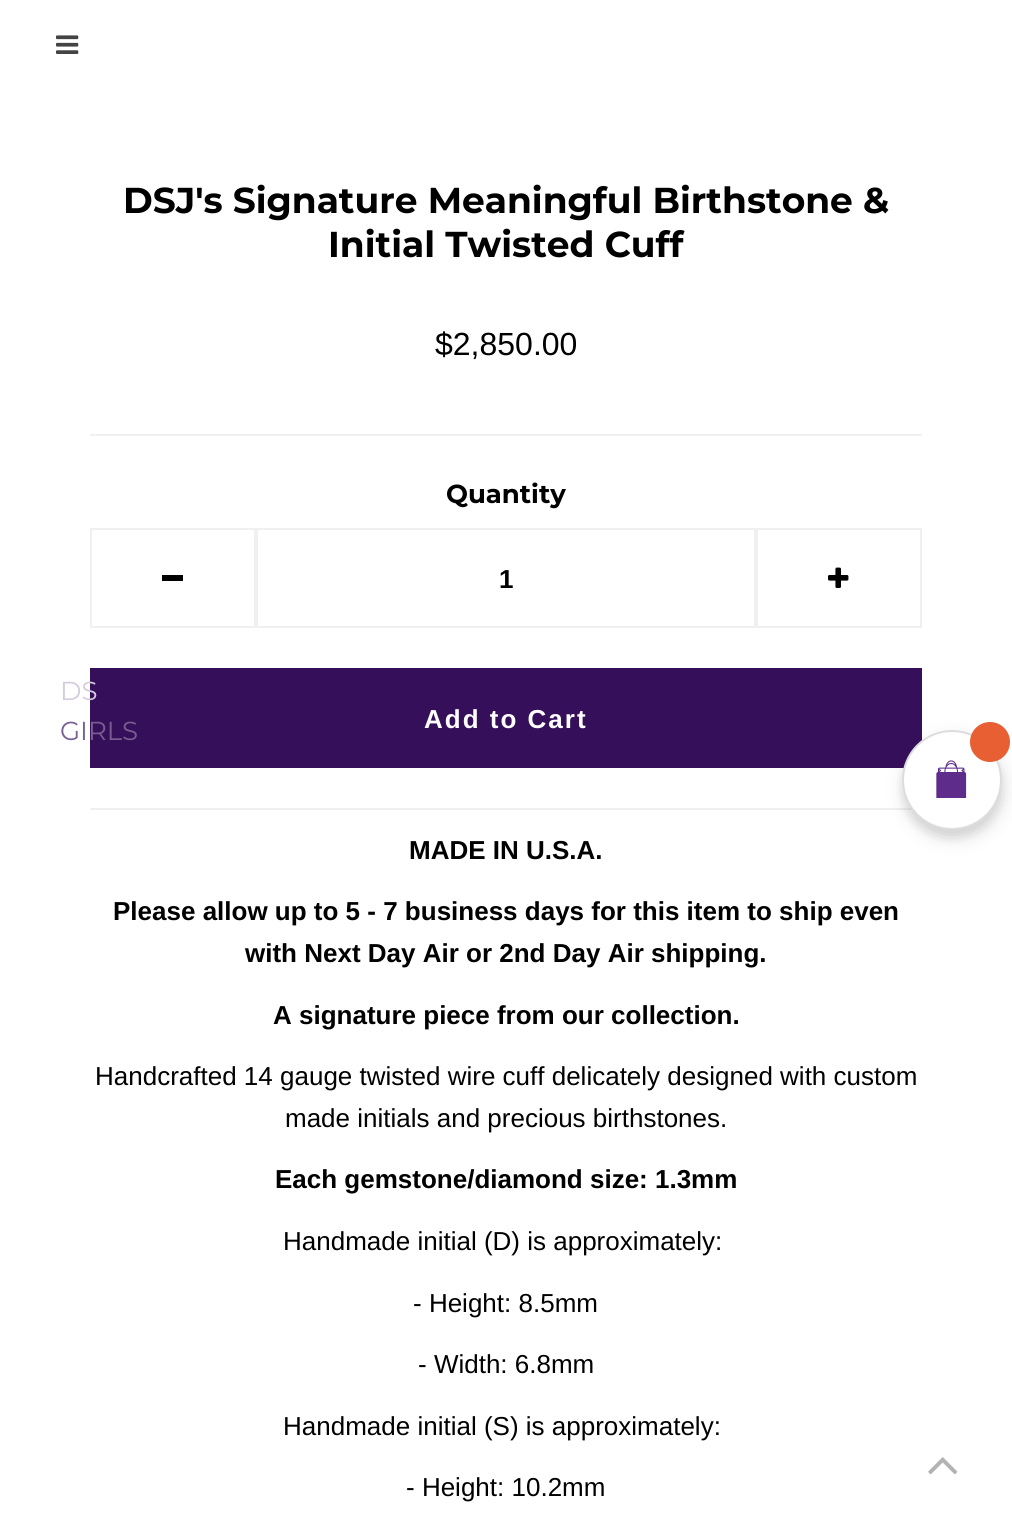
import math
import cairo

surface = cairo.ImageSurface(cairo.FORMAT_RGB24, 1012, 1538)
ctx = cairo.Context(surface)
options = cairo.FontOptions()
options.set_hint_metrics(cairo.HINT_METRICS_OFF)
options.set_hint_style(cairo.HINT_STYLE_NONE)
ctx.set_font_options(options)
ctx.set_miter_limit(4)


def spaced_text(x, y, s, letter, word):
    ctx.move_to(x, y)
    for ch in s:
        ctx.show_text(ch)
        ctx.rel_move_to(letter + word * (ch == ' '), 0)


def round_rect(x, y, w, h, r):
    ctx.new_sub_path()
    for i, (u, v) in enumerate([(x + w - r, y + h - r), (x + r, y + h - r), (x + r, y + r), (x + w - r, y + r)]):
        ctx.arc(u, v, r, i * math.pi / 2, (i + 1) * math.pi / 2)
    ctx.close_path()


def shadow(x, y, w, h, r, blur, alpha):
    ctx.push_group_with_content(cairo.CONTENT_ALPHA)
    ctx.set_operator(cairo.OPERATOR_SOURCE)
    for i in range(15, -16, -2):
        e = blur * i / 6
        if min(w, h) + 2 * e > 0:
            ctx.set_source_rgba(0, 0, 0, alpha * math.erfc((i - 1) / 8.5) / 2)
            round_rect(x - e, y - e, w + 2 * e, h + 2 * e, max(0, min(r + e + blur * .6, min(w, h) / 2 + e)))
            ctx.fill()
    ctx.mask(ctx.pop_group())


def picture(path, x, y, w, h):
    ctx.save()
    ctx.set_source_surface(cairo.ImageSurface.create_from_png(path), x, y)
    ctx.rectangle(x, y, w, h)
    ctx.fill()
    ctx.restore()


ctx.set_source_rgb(1, 1, 1)
ctx.paint()
ctx.select_font_face("Montserrat", cairo.FONT_SLANT_NORMAL, cairo.FONT_WEIGHT_BOLD)
ctx.set_font_size(36)
ctx.set_source_rgb(0, 0, 0)
ctx.move_to(123, 213)
ctx.show_text("DSJ's Signature Meaningful Birthstone &")
ctx.move_to(328, 257)
ctx.show_text("Initial Twisted Cuff")
ctx.select_font_face("Liberation Sans")
ctx.set_font_size(32)
ctx.move_to(435, 355)
ctx.show_text("$2,850.00")
ctx.set_source_rgb(0.941, 0.941, 0.941)
ctx.rectangle(90, 434, 832, 2)
ctx.fill()
ctx.rectangle(90, 808, 822, 2)
ctx.fill()
ctx.select_font_face("Montserrat", cairo.FONT_SLANT_NORMAL, cairo.FONT_WEIGHT_BOLD)
ctx.set_font_size(26)
ctx.set_source_rgb(0, 0, 0)
ctx.move_to(446, 503)
ctx.show_text("Quantity")
ctx.rectangle(91, 529, 164, 98)
ctx.set_source_rgb(0.941, 0.941, 0.941)
ctx.stroke()
ctx.set_source_rgb(0, 0, 0)
ctx.rectangle(162, 575, 21, 6)
ctx.fill()
ctx.rectangle(257, 529, 498, 98)
ctx.set_source_rgb(0.941, 0.941, 0.941)
ctx.stroke()
ctx.select_font_face("Liberation Sans", cairo.FONT_SLANT_NORMAL, cairo.FONT_WEIGHT_BOLD)
ctx.set_source_rgb(0, 0, 0)
ctx.move_to(499, 588)
ctx.show_text("1")
ctx.rectangle(757, 529, 164, 98)
ctx.set_source_rgb(0.941, 0.941, 0.941)
ctx.stroke()
picture("img1.png", 828, 567, 21, 21)
ctx.set_source_rgb(0.212, 0.059, 0.353)
ctx.rectangle(90, 668, 832, 100)
ctx.fill()
ctx.set_source_rgb(1, 1, 1)
spaced_text(424, 728, "Add to Cart", 2, 0)
ctx.set_source_rgb(0, 0, 0)
ctx.move_to(409, 859)
ctx.show_text("MADE IN U.S.A.")
ctx.move_to(113, 920)
ctx.show_text("Please allow up to 5 - 7 business days for this item to ship even")
ctx.move_to(245, 962)
ctx.show_text("with Next Day Air or 2nd Day Air shipping.")
ctx.move_to(273, 1024)
ctx.show_text("A signature piece from our collection.")
ctx.select_font_face("Liberation Sans")
ctx.move_to(95, 1085)
ctx.show_text("Handcrafted 14 gauge twisted wire cuff delicately designed with custom")
ctx.move_to(285, 1127)
ctx.show_text("made initials and precious birthstones.")
ctx.select_font_face("Liberation Sans", cairo.FONT_SLANT_NORMAL, cairo.FONT_WEIGHT_BOLD)
ctx.move_to(275, 1188)
ctx.show_text("Each gemstone/diamond size: 1.3mm")
ctx.select_font_face("Liberation Sans")
ctx.move_to(283, 1250)
ctx.show_text("Handmade initial (D) is approximately:")
ctx.move_to(413, 1312)
ctx.show_text("- Height: 8.5mm")
ctx.move_to(418, 1373)
ctx.show_text("- Width: 6.8mm")
ctx.move_to(283, 1435)
ctx.show_text("Handmade initial (S) is approximately:")
ctx.move_to(406, 1496)
ctx.show_text("- Height: 10.2mm")
picture("img2.png", 56, 35, 23, 19)
ctx.select_font_face("Montserrat")
ctx.set_source_rgb(0.835, 0.804, 0.867)
ctx.move_to(60, 700)
ctx.show_text("DS")
ctx.set_source_rgb(0.475, 0.369, 0.569)
ctx.move_to(60, 740)
ctx.show_text("GIRLS")
ctx.set_source_rgb(0, 0, 0)
shadow(902, 738, 100, 100, 50, 4, 0.08)
shadow(904, 738, 100, 100, 50, 10, 0.12)
ctx.set_source_rgb(1, 1, 1)
ctx.arc(952, 780, 49, 0, 2 * math.pi)
ctx.fill_preserve()
ctx.set_source_rgb(0.867, 0.867, 0.867)
ctx.stroke()
ctx.set_source_rgb(0.906, 0.373, 0.2)
ctx.arc(990, 742, 20, 0, 2 * math.pi)
ctx.fill()
picture("img3.png", 936, 760, 31, 38)
picture("img4.png", 928, 1457, 30, 18)
surface.write_to_png("page.png")
